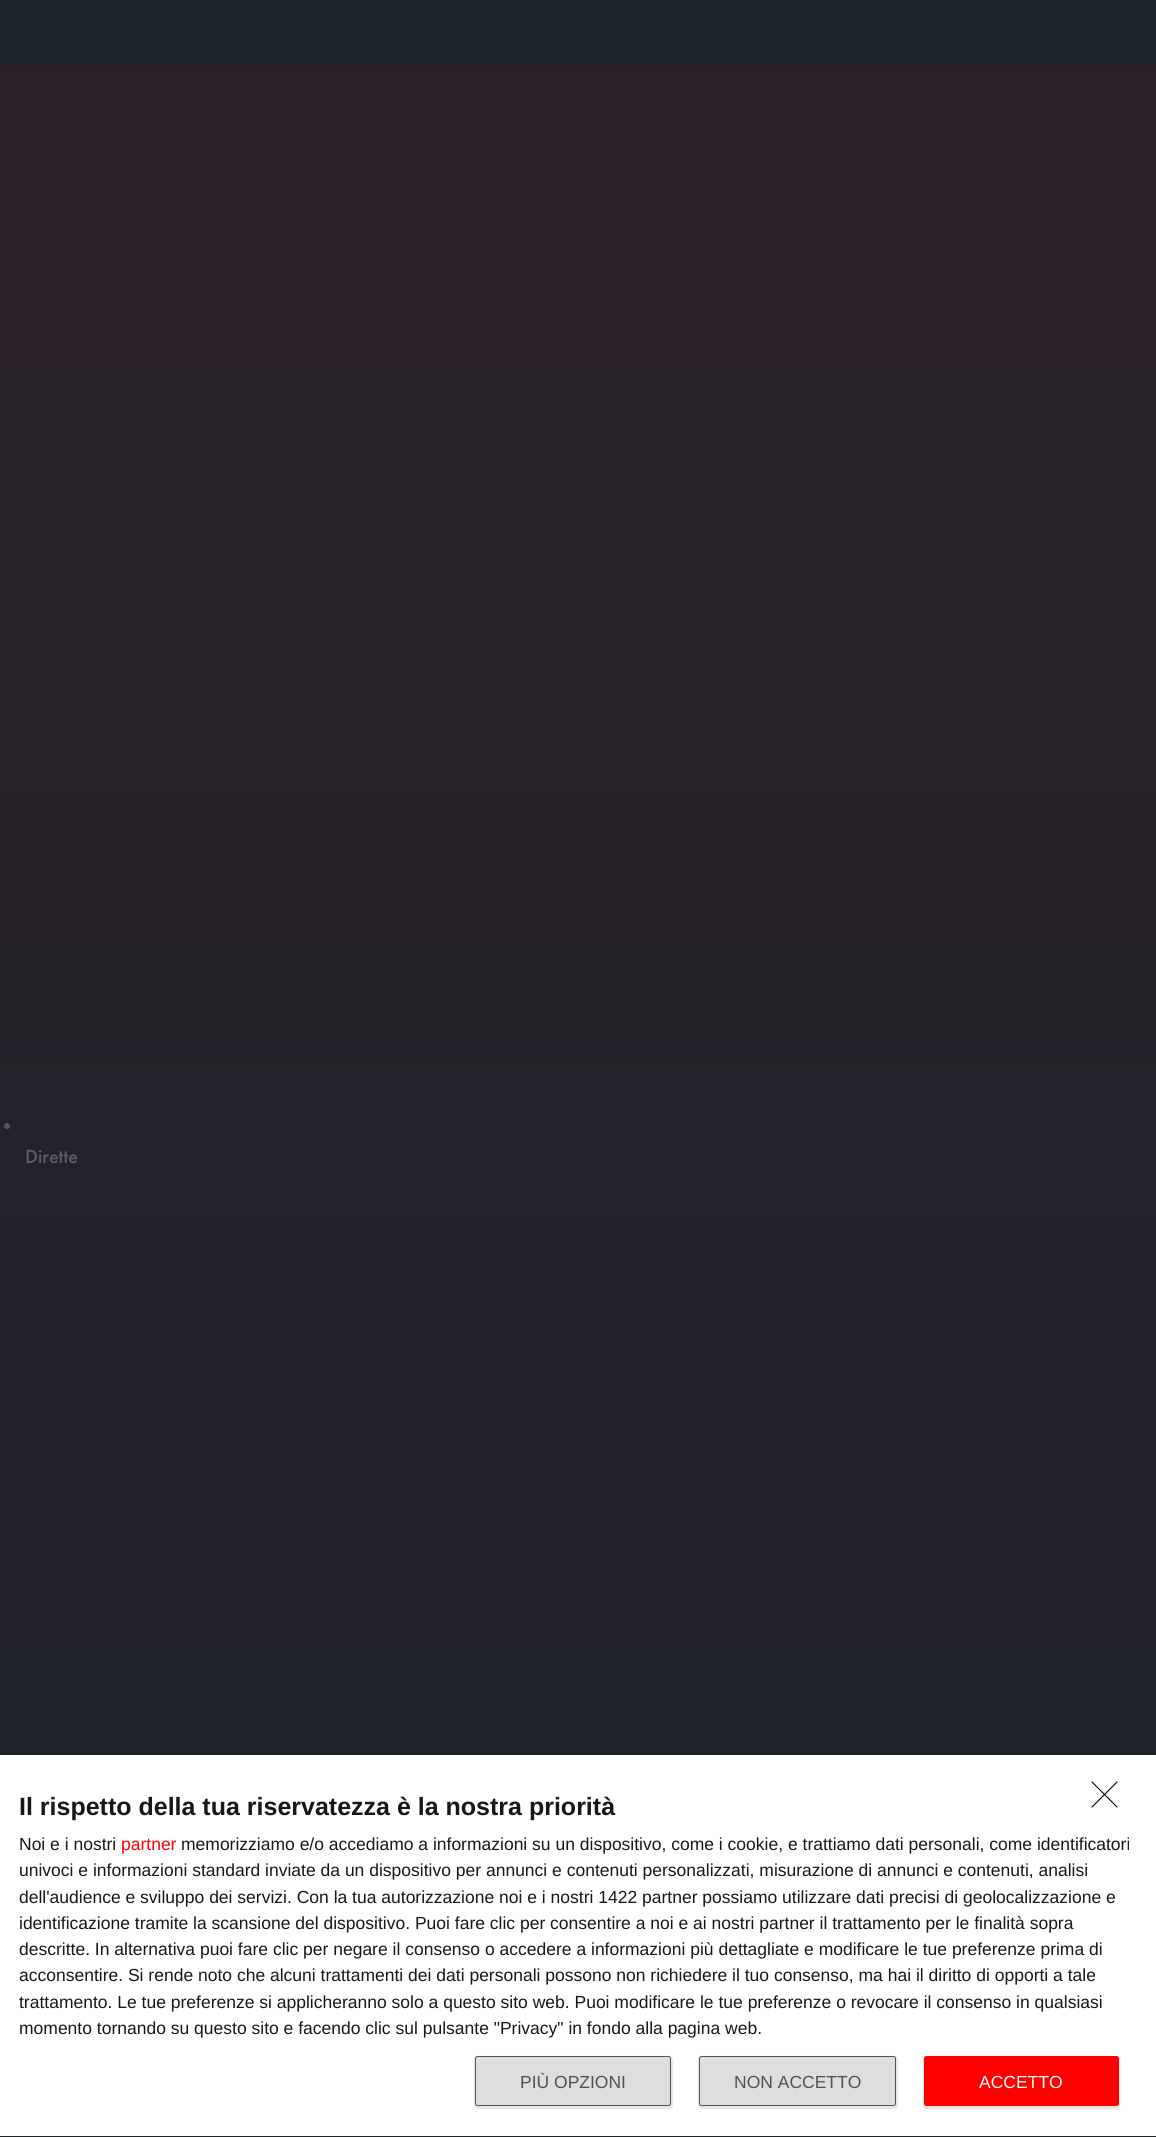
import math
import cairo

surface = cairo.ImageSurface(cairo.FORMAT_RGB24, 1156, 2137)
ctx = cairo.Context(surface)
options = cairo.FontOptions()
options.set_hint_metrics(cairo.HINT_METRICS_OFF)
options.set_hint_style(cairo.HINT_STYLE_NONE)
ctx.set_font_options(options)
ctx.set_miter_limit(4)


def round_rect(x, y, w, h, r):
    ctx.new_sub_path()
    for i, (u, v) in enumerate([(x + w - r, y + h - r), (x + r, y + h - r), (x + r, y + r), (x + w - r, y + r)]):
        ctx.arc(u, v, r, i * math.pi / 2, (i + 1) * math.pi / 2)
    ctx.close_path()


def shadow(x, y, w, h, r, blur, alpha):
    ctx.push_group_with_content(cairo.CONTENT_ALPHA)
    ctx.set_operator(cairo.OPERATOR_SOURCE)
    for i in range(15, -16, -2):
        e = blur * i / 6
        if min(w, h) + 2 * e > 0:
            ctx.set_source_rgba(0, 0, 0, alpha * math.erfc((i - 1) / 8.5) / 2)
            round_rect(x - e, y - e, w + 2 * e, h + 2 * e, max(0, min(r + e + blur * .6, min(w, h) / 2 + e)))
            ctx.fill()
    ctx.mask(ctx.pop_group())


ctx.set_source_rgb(1, 1, 1)
ctx.paint()
gradient = cairo.LinearGradient(578, 0, 578, 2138)
gradient.add_color_stop_rgba(0, 0.169, 0.122, 0.153, 1)
gradient.add_color_stop_rgba(1, 0.11, 0.133, 0.165, 1)
ctx.set_source(gradient)
ctx.rectangle(0, 65, 1156, 2072)
ctx.fill()
ctx.set_source_rgb(0.11, 0.133, 0.165)
ctx.rectangle(0, 0, 1156, 65)
ctx.fill()
ctx.set_source_rgb(0.314, 0.337, 0.373)
ctx.arc(7, 1126, 3, 0, 2 * math.pi)
ctx.fill()
ctx.select_font_face("Futura PT Medium")
ctx.set_font_size(20)
ctx.set_source_rgb(0.349, 0.373, 0.404)
ctx.move_to(25, 1163)
ctx.show_text("Dirette")
ctx.set_source_rgb(1, 1, 1)
ctx.rectangle(0, 1755, 1156, 381)
ctx.fill()
ctx.new_path()
ctx.move_to(1092, 1782)
ctx.line_to(1117, 1807)
ctx.move_to(1117, 1782)
ctx.line_to(1092, 1807)
ctx.set_source_rgb(0, 0, 0)
ctx.set_line_width(1.1)
ctx.set_line_cap(cairo.LINE_CAP_ROUND)
ctx.set_line_join(cairo.LINE_JOIN_ROUND)
ctx.stroke()
ctx.select_font_face("Liberation Sans", cairo.FONT_SLANT_NORMAL, cairo.FONT_WEIGHT_BOLD)
ctx.set_font_size(25)
ctx.set_source_rgb(0.09, 0.09, 0.09)
ctx.move_to(19, 1815)
ctx.show_text("Il rispetto della tua riservatezza è la nostra priorità")
ctx.select_font_face("Liberation Sans")
ctx.set_font_size(17.5)
ctx.move_to(19, 1850)
ctx.show_text("Noi e i nostri")
ctx.set_source_rgb(1, 0, 0)
ctx.move_to(121, 1850)
ctx.show_text("partner")
ctx.set_source_rgb(0.09, 0.09, 0.09)
ctx.move_to(181, 1850)
ctx.show_text("memorizziamo e/o accediamo a informazioni su un dispositivo, come i cookie, e trattiamo dati personali, come identificatori")
ctx.move_to(19, 1876)
ctx.show_text("univoci e informazioni standard inviate da un dispositivo per annunci e contenuti personalizzati, misurazione di annunci e contenuti, analisi")
ctx.move_to(19, 1903)
ctx.show_text("dell'audience e sviluppo dei servizi. Con la tua autorizzazione noi e i nostri 1422 partner possiamo utilizzare dati precisi di geolocalizzazione e")
ctx.move_to(19, 1929)
ctx.show_text("identificazione tramite la scansione del dispositivo. Puoi fare clic per consentire a noi e ai nostri partner il trattamento per le finalità sopra")
ctx.move_to(19, 1955)
ctx.show_text("descritte. In alternativa puoi fare clic per negare il consenso o accedere a informazioni più dettagliate e modificare le tue preferenze prima di")
ctx.move_to(19, 1981)
ctx.show_text("acconsentire. Si rende noto che alcuni trattamenti dei dati personali possono non richiedere il tuo consenso, ma hai il diritto di opporti a tale")
ctx.move_to(19, 2008)
ctx.show_text("trattamento. Le tue preferenze si applicheranno solo a questo sito web. Puoi modificare le tue preferenze o revocare il consenso in qualsiasi")
ctx.move_to(19, 2034)
ctx.show_text("momento tornando su questo sito e facendo clic sul pulsante \"Privacy\" in fondo alla pagina web.")
ctx.set_source_rgb(0, 0, 0)
shadow(474, 2056, 199, 53, 4, 0.5, 0.1)
ctx.set_source_rgb(0.871, 0.871, 0.871)
round_rect(475.5, 2056.5, 195, 49, 2)
ctx.fill_preserve()
ctx.set_source_rgb(0.318, 0.318, 0.318)
ctx.set_line_width(1)
ctx.set_line_cap(cairo.LINE_CAP_BUTT)
ctx.set_line_join(cairo.LINE_JOIN_MITER)
ctx.stroke()
ctx.move_to(520, 2088)
ctx.show_text("PIÙ OPZIONI")
ctx.set_source_rgb(0, 0, 0)
shadow(698, 2056, 200, 53, 4, 0.5, 0.1)
ctx.set_source_rgb(0.871, 0.871, 0.871)
round_rect(699.5, 2056.5, 196, 49, 2)
ctx.fill_preserve()
ctx.set_source_rgb(0.318, 0.318, 0.318)
ctx.stroke()
ctx.move_to(734, 2088)
ctx.show_text("NON ACCETTO")
ctx.set_source_rgb(0, 0, 0)
shadow(923, 2056, 197, 53, 4, 0.5, 0.1)
ctx.set_source_rgb(1, 0, 0)
round_rect(924, 2056, 195, 50, 2.5)
ctx.fill()
ctx.set_source_rgb(1, 1, 1)
ctx.move_to(979, 2088)
ctx.show_text("ACCETTO")
surface.write_to_png("page.png")
